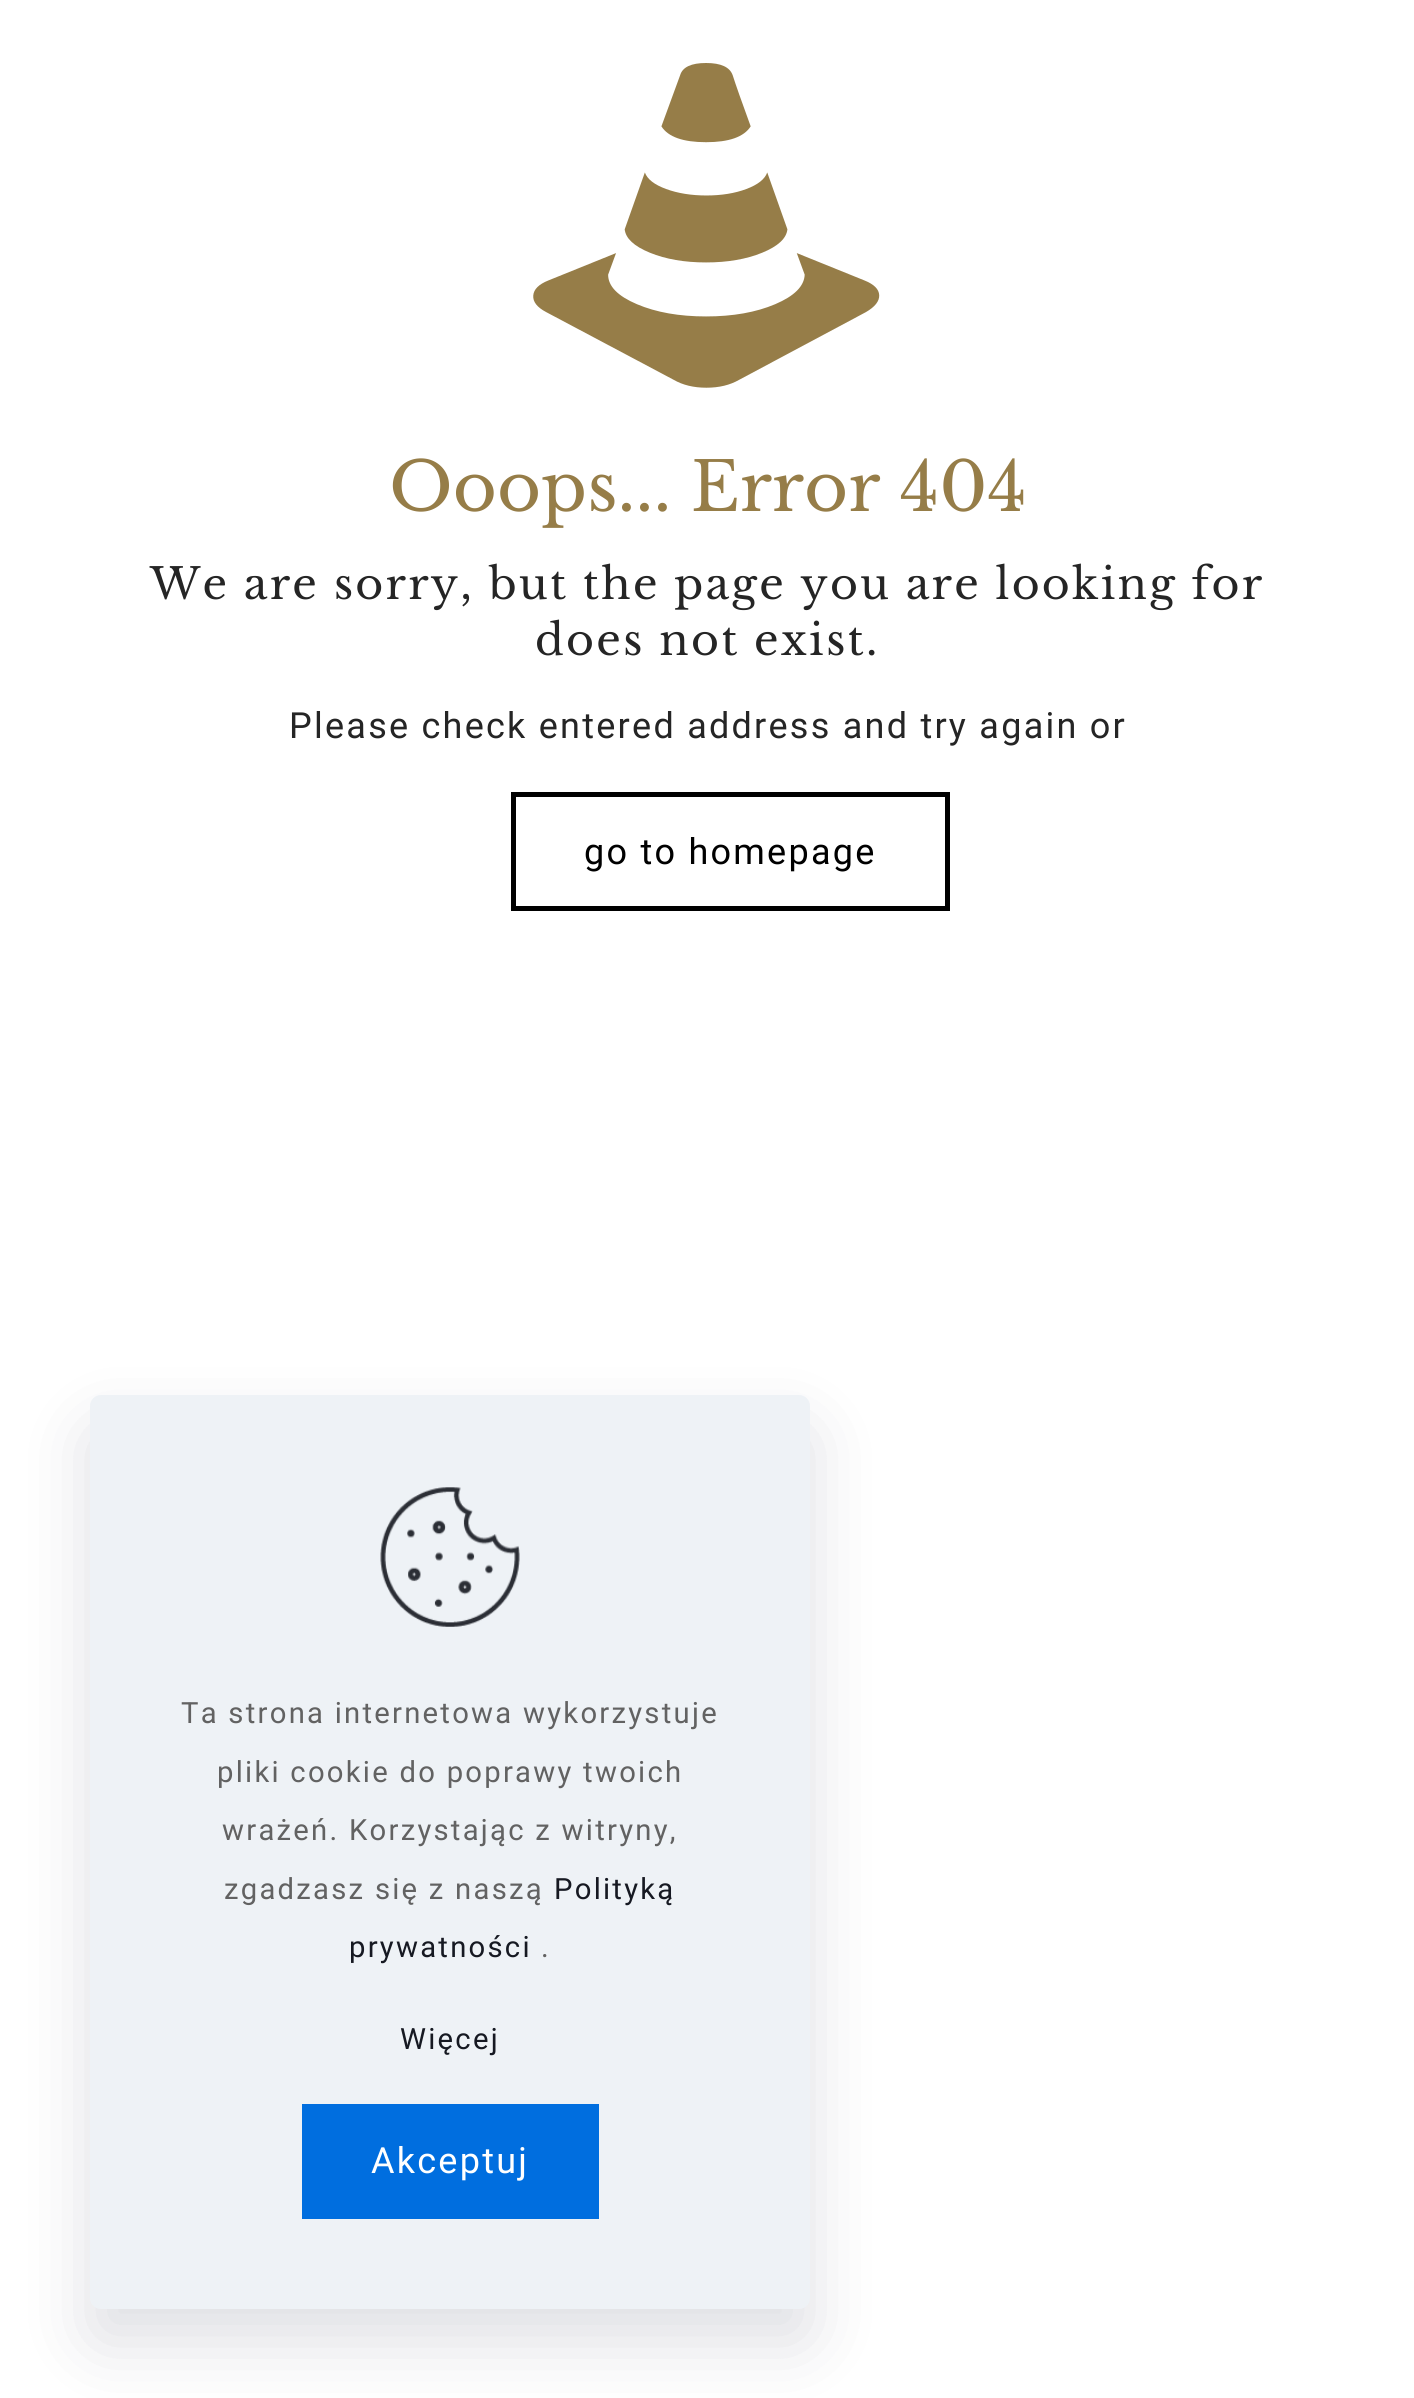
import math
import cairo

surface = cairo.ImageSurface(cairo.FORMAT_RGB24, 1414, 2398)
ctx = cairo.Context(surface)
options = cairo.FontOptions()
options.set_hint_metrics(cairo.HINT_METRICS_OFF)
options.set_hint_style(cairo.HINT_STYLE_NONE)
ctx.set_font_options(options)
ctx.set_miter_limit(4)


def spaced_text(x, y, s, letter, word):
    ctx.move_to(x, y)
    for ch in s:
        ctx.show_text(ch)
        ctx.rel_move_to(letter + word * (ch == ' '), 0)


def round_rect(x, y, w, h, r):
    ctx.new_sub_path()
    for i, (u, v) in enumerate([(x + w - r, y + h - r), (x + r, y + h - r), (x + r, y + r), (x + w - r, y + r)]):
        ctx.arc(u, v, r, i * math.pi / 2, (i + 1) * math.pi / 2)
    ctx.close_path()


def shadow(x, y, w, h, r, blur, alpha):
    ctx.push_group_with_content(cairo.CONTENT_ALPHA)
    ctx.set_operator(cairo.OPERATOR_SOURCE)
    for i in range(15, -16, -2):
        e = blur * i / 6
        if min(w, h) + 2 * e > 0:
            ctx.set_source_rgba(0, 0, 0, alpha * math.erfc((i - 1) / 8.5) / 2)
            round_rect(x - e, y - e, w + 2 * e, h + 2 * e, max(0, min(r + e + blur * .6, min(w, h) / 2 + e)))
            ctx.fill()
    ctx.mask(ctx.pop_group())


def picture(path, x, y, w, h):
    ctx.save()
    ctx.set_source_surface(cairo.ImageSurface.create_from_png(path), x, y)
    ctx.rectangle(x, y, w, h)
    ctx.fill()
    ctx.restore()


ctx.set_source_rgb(1, 1, 1)
ctx.paint()
picture("img1.png", 533, 63, 347, 325)
ctx.select_font_face("Libre Baskerville")
ctx.set_font_size(67.5)
ctx.set_source_rgb(0.588, 0.49, 0.282)
ctx.move_to(389, 511)
ctx.show_text("Ooops... Error 404")
ctx.set_font_size(42.75)
ctx.set_source_rgb(0.145, 0.145, 0.145)
spaced_text(150, 599, "We are sorry, but the page you are looking for", 2.25, 0)
spaced_text(535, 655, "does not exist.", 2.25, 0)
ctx.select_font_face("Roboto")
ctx.set_font_size(36)
spaced_text(289, 738, "Please check entered address and try again or", 2.25, 0)
ctx.rectangle(513.5, 794.5, 434, 114)
ctx.set_source_rgb(0, 0, 0)
ctx.set_line_width(5)
ctx.stroke()
spaced_text(584, 864, "go to homepage", 2.25, 0)
ctx.set_source_rgb(0.004, 0.027, 0.153)
shadow(90, 1429, 720, 913, 11, 34, 0.13)
ctx.set_source_rgb(0.933, 0.949, 0.961)
round_rect(90, 1395, 720, 914, 11)
ctx.fill()
picture("img2.png", 380, 1487, 140, 140)
ctx.set_font_size(29.25)
ctx.set_source_rgb(0.384, 0.384, 0.384)
spaced_text(181, 1723, "Ta strona internetowa wykorzystuje", 2.25, 0)
spaced_text(217, 1782, "pliki cookie do poprawy twoich", 2.25, 0)
spaced_text(222, 1840, "wrażeń. Korzystając z witryny,", 2.25, 0)
spaced_text(224, 1899, "zgadzasz się z naszą", 2.25, 0)
ctx.set_source_rgb(0.086, 0.098, 0.133)
spaced_text(554, 1899, "Polityką", 2.25, 0)
spaced_text(349, 1957, "prywatności", 2.25, 0)
ctx.set_source_rgb(0.384, 0.384, 0.384)
spaced_text(541, 1957, ".", 2.25, 0)
ctx.set_source_rgb(0.086, 0.098, 0.133)
spaced_text(400, 2049, "Więcej", 2.25, 0)
ctx.set_source_rgb(0, 0.431, 0.875)
ctx.rectangle(302, 2104, 297, 115)
ctx.fill()
ctx.set_font_size(36)
ctx.set_source_rgb(1, 1, 1)
spaced_text(371, 2173, "Akceptuj", 2.25, 0)
surface.write_to_png("page.png")
